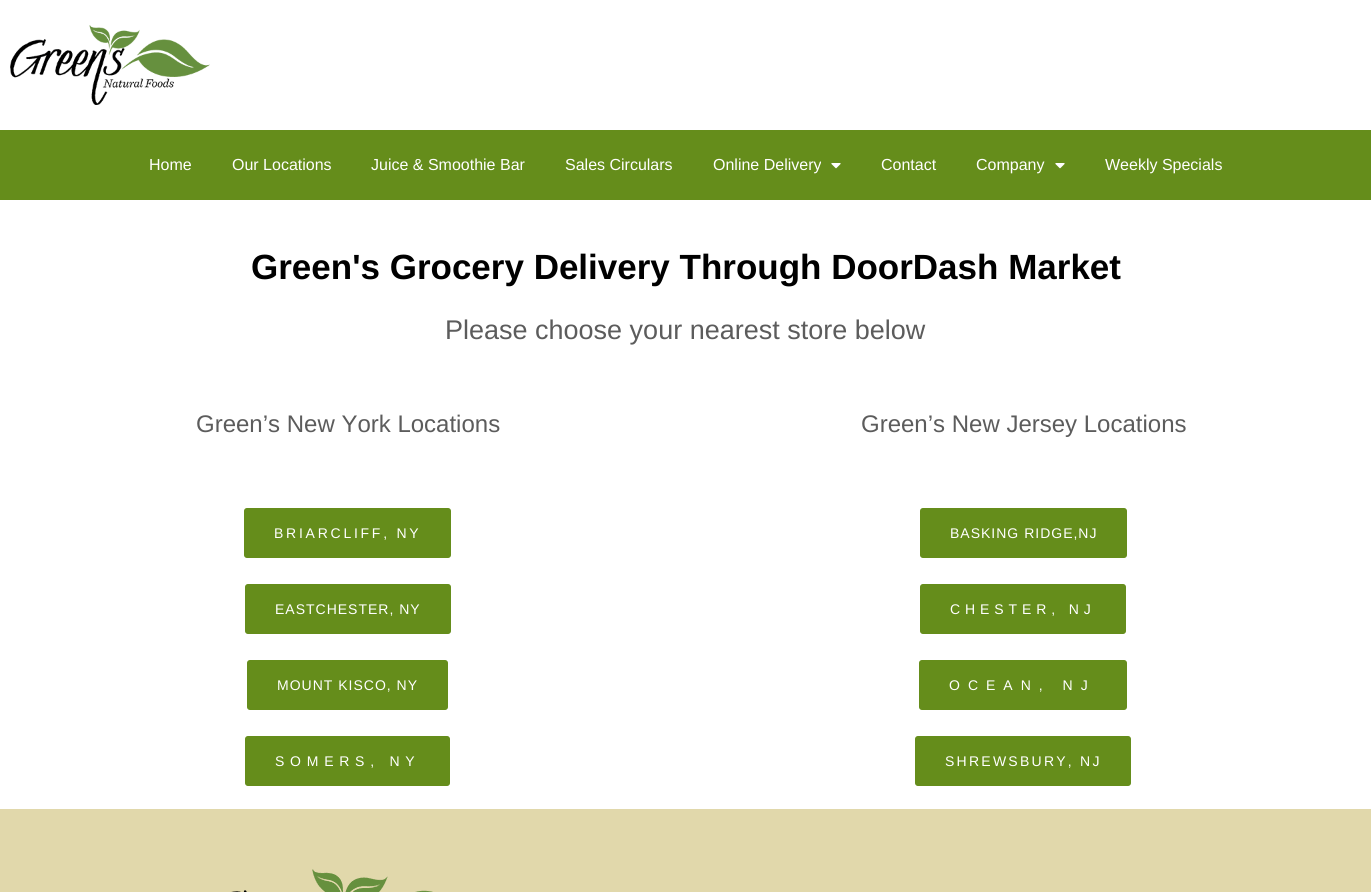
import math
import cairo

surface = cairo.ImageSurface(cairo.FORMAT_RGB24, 1371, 892)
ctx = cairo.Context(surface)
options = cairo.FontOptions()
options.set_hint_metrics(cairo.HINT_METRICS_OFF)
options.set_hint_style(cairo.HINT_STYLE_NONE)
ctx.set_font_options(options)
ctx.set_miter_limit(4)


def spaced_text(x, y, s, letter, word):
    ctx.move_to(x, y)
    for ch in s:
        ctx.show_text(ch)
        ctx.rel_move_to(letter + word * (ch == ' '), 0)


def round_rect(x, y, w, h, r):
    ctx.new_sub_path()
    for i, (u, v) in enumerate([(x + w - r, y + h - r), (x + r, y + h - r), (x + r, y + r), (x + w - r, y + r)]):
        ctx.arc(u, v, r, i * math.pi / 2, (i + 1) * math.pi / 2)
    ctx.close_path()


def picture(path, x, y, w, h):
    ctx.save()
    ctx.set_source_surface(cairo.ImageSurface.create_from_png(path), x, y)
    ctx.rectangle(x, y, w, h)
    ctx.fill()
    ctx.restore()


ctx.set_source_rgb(1, 1, 1)
ctx.paint()
picture("img1.png", 10, 25, 200, 80)
ctx.set_source_rgb(0.396, 0.553, 0.106)
ctx.rectangle(0, 130, 1371, 70)
ctx.fill()
ctx.select_font_face("Liberation Sans")
ctx.set_font_size(16)
ctx.set_source_rgb(1, 1, 1)
ctx.move_to(149, 170)
ctx.show_text("Home")
ctx.move_to(232, 170)
ctx.show_text("Our Locations")
ctx.move_to(371, 170)
ctx.show_text("Juice & Smoothie Bar")
ctx.move_to(565, 170)
ctx.show_text("Sales Circulars")
ctx.move_to(713, 170)
ctx.show_text("Online Delivery")
picture("img2.png", 831, 163, 10, 6)
ctx.move_to(881, 170)
ctx.show_text("Contact")
ctx.move_to(976, 170)
ctx.show_text("Company")
picture("img2.png", 1055, 163, 10, 6)
ctx.move_to(1105, 170)
ctx.show_text("Weekly Specials")
ctx.select_font_face("Liberation Sans", cairo.FONT_SLANT_NORMAL, cairo.FONT_WEIGHT_BOLD)
ctx.set_font_size(35)
ctx.set_source_rgb(0, 0, 0)
ctx.move_to(251, 279)
ctx.show_text("Green's Grocery Delivery Through DoorDash Market")
ctx.select_font_face("Liberation Sans")
ctx.set_font_size(27)
ctx.set_source_rgb(0.361, 0.361, 0.361)
ctx.move_to(445, 339)
ctx.show_text("Please choose your nearest store below")
ctx.set_font_size(24)
ctx.move_to(196, 432)
ctx.show_text("Green’s New York Locations")
ctx.move_to(861, 432)
ctx.show_text("Green’s New Jersey Locations")
ctx.set_source_rgb(0.396, 0.553, 0.106)
round_rect(242.5, 506.5, 210, 53, 4.5)
ctx.fill_preserve()
ctx.set_source_rgb(1, 1, 1)
ctx.set_line_width(3)
ctx.stroke()
ctx.set_font_size(14)
spaced_text(274, 538, "BRIARCLIFF, NY", 2.75, 0)
ctx.set_source_rgb(0.396, 0.553, 0.106)
round_rect(243.5, 582.5, 209, 53, 4.5)
ctx.fill_preserve()
ctx.set_source_rgb(1, 1, 1)
ctx.stroke()
spaced_text(275, 614, "EASTCHESTER, NY", 1, 0)
ctx.set_source_rgb(0.396, 0.553, 0.106)
round_rect(245.5, 658.5, 204, 53, 4.5)
ctx.fill_preserve()
ctx.set_source_rgb(1, 1, 1)
ctx.stroke()
spaced_text(277, 690, "MOUNT KISCO, NY", 1, 0)
ctx.set_source_rgb(0.396, 0.553, 0.106)
round_rect(243.5, 734.5, 208, 53, 4.5)
ctx.fill_preserve()
ctx.set_source_rgb(1, 1, 1)
ctx.stroke()
spaced_text(275, 766, "SOMERS, NY", 5.75, 0)
ctx.set_source_rgb(0.396, 0.553, 0.106)
round_rect(918.5, 506.5, 210, 53, 4.5)
ctx.fill_preserve()
ctx.set_source_rgb(1, 1, 1)
ctx.stroke()
spaced_text(950, 538, "BASKING RIDGE,NJ", 1, 0)
ctx.set_source_rgb(0.396, 0.553, 0.106)
round_rect(918.5, 582.5, 209, 53, 4.5)
ctx.fill_preserve()
ctx.set_source_rgb(1, 1, 1)
ctx.stroke()
spaced_text(950, 614, "CHESTER, NJ", 4.9, 0)
ctx.set_source_rgb(0.396, 0.553, 0.106)
round_rect(917.5, 658.5, 211, 53, 4.5)
ctx.fill_preserve()
ctx.set_source_rgb(1, 1, 1)
ctx.stroke()
spaced_text(949, 690, "OCEAN, NJ", 8, 0)
ctx.set_source_rgb(0.396, 0.553, 0.106)
round_rect(913.5, 734.5, 219, 53, 4.5)
ctx.fill_preserve()
ctx.set_source_rgb(1, 1, 1)
ctx.stroke()
spaced_text(945, 766, "SHREWSBURY, NJ", 2.25, 0)
ctx.set_source_rgb(0.882, 0.847, 0.671)
ctx.rectangle(0, 809, 1371, 83)
ctx.fill()
picture("img3.png", 231, 869, 202, 23)
surface.write_to_png("page.png")
